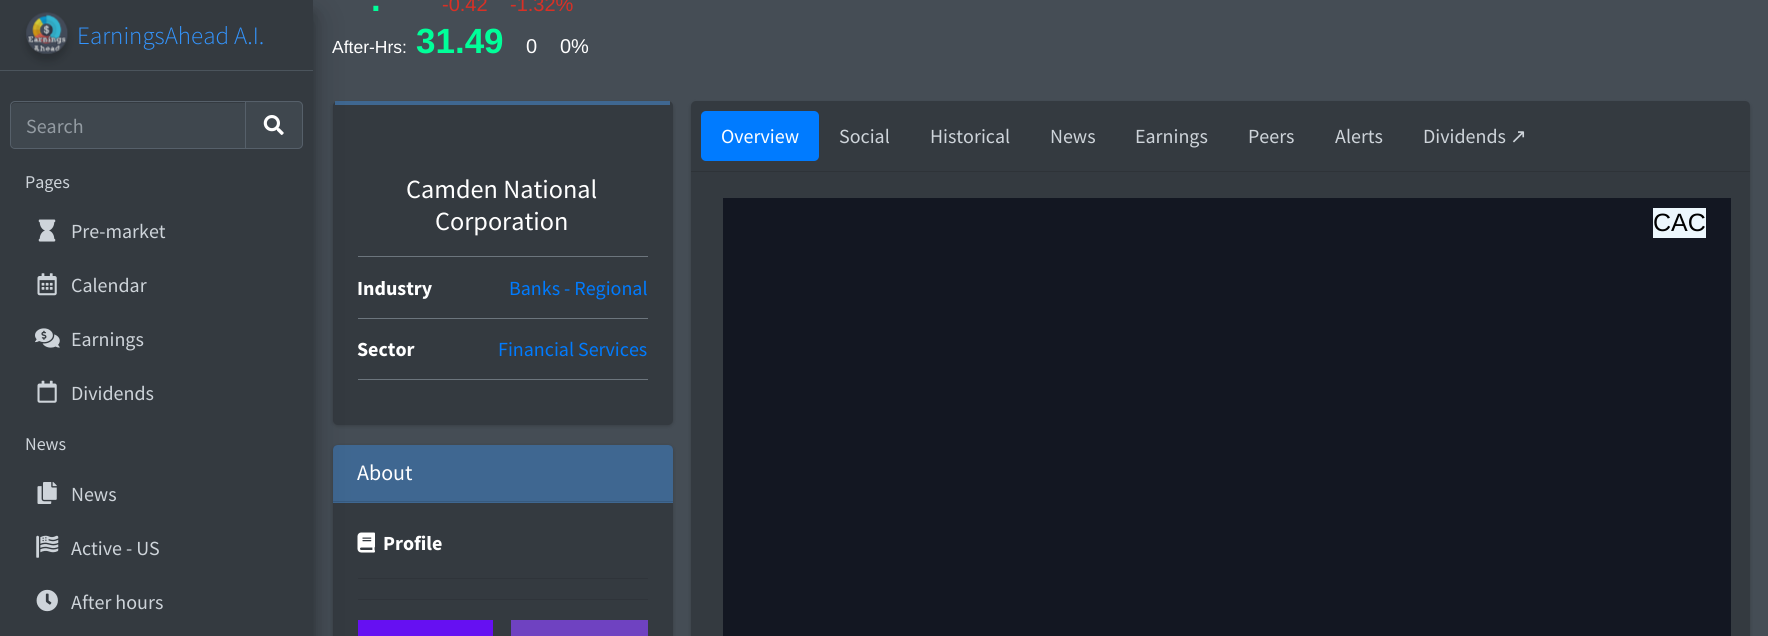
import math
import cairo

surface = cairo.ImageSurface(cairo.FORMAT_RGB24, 1768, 636)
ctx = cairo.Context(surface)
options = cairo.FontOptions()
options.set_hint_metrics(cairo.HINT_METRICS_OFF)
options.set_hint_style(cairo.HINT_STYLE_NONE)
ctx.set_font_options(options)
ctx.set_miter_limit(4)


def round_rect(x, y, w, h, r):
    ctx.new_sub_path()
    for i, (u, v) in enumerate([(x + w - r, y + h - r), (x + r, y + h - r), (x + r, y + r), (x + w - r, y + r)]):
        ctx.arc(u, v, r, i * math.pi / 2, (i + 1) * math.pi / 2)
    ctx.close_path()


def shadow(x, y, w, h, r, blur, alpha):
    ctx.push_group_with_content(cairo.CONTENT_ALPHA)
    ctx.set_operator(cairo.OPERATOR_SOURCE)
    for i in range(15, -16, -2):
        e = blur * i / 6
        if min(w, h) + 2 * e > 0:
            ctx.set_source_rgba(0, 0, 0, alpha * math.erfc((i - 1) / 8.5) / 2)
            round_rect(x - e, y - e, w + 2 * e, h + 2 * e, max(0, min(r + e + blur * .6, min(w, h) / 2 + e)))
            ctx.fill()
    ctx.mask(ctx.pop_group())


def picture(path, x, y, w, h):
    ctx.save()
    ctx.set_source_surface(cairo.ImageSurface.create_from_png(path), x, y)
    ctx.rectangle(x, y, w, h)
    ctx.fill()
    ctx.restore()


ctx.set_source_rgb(0.271, 0.302, 0.333)
ctx.paint()
ctx.set_source_rgb(0, 0, 0)
shadow(0, 13, 313, 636, 0, 6, 0.22)
shadow(333, 103, 340, 323, 5, 2, 0.2)
ctx.set_source_rgb(0.204, 0.227, 0.251)
round_rect(333, 101, 340, 324, 5)
ctx.fill()
ctx.set_source_rgb(0.247, 0.404, 0.569)
ctx.rectangle(335, 101, 335, 4)
ctx.fill()
ctx.set_source_rgb(0.424, 0.459, 0.49)
ctx.rectangle(358, 256, 290, 1)
ctx.fill()
ctx.rectangle(358, 318, 290, 1)
ctx.fill()
ctx.rectangle(358, 379, 290, 1)
ctx.fill()
ctx.set_source_rgb(0, 0, 0)
shadow(333, 446, 340, 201, 5, 2, 0.2)
ctx.set_source_rgb(0.204, 0.227, 0.251)
round_rect(333, 445, 340, 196, 5)
ctx.fill()
ctx.set_source_rgb(0.247, 0.404, 0.569)
ctx.new_path()
ctx.move_to(338, 445)
ctx.line_to(668, 445)
ctx.curve_to(671, 445, 673, 447, 673, 450)
ctx.line_to(673, 503)
ctx.line_to(333, 503)
ctx.line_to(333, 450)
ctx.curve_to(333, 447, 335, 445, 338, 445)
ctx.close_path()
ctx.fill()
ctx.set_source_rgb(0.216, 0.353, 0.498)
ctx.rectangle(333, 501, 340, 1)
ctx.fill()
picture("img10.png", 357, 532, 18, 21)
ctx.set_source_rgb(0.184, 0.204, 0.227)
ctx.rectangle(358, 578, 290, 1)
ctx.fill()
ctx.rectangle(358, 599, 290, 1)
ctx.fill()
ctx.set_source_rgb(0.4, 0.063, 0.949)
ctx.rectangle(358, 620, 135, 16)
ctx.fill()
ctx.set_source_rgb(0, 0, 0)
shadow(0, 18, 313, 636, 0, 17.5, 0.25)
ctx.set_source_rgb(0.204, 0.227, 0.251)
ctx.rectangle(0, 0, 313, 636)
ctx.fill()
ctx.set_source_rgb(0.294, 0.329, 0.361)
ctx.rectangle(0, 70, 313, 1)
ctx.fill()
ctx.save()
ctx.set_fill_rule(cairo.FILL_RULE_EVEN_ODD)
ctx.new_path()
ctx.move_to(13, 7)
ctx.line_to(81, 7)
ctx.line_to(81, 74)
ctx.line_to(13, 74)
ctx.close_path()
ctx.move_to(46.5, 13)
ctx.line_to(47.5, 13)
ctx.curve_to(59, 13, 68, 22, 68, 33.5)
ctx.curve_to(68, 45, 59, 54, 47.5, 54)
ctx.line_to(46.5, 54)
ctx.curve_to(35, 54, 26, 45, 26, 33.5)
ctx.curve_to(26, 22, 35, 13, 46.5, 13)
ctx.close_path()
ctx.clip()
ctx.set_source_rgb(0.039, 0.047, 0.051)
shadow(26, 20, 42, 41, 20.5, 4, 0.23)
ctx.restore()
picture("img1.png", 26, 12, 42, 42)
ctx.select_font_face("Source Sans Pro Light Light")
ctx.set_font_size(25)
ctx.set_source_rgb(0.2, 0.584, 1)
ctx.move_to(77, 44)
ctx.show_text("EarningsAhead A.I.")
ctx.set_source_rgb(0.247, 0.278, 0.306)
ctx.new_path()
ctx.move_to(15, 103)
ctx.line_to(245, 103)
ctx.line_to(245, 148)
ctx.line_to(15, 148)
ctx.curve_to(13, 148, 11, 146, 11, 144)
ctx.line_to(11, 107)
ctx.curve_to(11, 105, 13, 103, 15, 103)
ctx.close_path()
ctx.fill()
ctx.new_path()
ctx.move_to(15, 101.5)
ctx.line_to(245.5, 101.5)
ctx.line_to(245.5, 148.5)
ctx.line_to(15, 148.5)
ctx.curve_to(12.5, 148.5, 10.5, 146.5, 10.5, 144)
ctx.line_to(10.5, 106)
ctx.curve_to(10.5, 103.5, 12.5, 101.5, 15, 101.5)
ctx.close_path()
ctx.set_source_rgb(0.337, 0.376, 0.416)
ctx.set_line_width(1)
ctx.stroke()
ctx.select_font_face("Source Sans Pro")
ctx.set_font_size(20)
ctx.set_source_rgb(0.576, 0.608, 0.635)
ctx.move_to(26, 133)
ctx.show_text("Search")
ctx.set_source_rgb(0.247, 0.278, 0.306)
ctx.new_path()
ctx.move_to(245.5, 101.5)
ctx.line_to(298, 101.5)
ctx.curve_to(300.5, 101.5, 302.5, 103.5, 302.5, 106)
ctx.line_to(302.5, 144)
ctx.curve_to(302.5, 146.5, 300.5, 148.5, 298, 148.5)
ctx.line_to(245.5, 148.5)
ctx.close_path()
ctx.fill_preserve()
ctx.set_source_rgb(0.337, 0.376, 0.416)
ctx.stroke()
picture("img2.png", 263, 115, 21, 20)
ctx.set_font_size(18)
ctx.set_source_rgb(0.808, 0.831, 0.855)
ctx.move_to(25, 188)
ctx.show_text("Pages")
picture("img3.png", 38, 219, 18, 23)
ctx.set_font_size(20)
ctx.move_to(71, 238)
ctx.show_text("Pre-market")
picture("img4.png", 37, 273, 20, 23)
ctx.move_to(71, 292)
ctx.show_text("Calendar")
picture("img5.png", 35, 328, 25, 20)
ctx.move_to(71, 346)
ctx.show_text("Earnings")
picture("img6.png", 37, 380, 20, 23)
ctx.move_to(71, 400)
ctx.show_text("Dividends")
ctx.set_font_size(18)
ctx.move_to(25, 450)
ctx.show_text("News")
picture("img7.png", 37, 482, 20, 22)
ctx.set_font_size(20)
ctx.move_to(71, 501)
ctx.show_text("News")
picture("img8.png", 36, 535, 23, 23)
ctx.move_to(71, 555)
ctx.show_text("Active - US")
picture("img9.png", 36, 589, 22, 23)
ctx.move_to(71, 609)
ctx.show_text("After hours")
ctx.select_font_face("Liberation Sans", cairo.FONT_SLANT_NORMAL, cairo.FONT_WEIGHT_BOLD)
ctx.set_font_size(35)
ctx.set_source_rgb(0, 1, 0.6)
ctx.move_to(371, 11)
ctx.show_text(".")
ctx.select_font_face("Liberation Sans")
ctx.set_font_size(20)
ctx.set_source_rgb(0.851, 0.188, 0.145)
ctx.move_to(442, 11)
ctx.show_text("-0.42")
ctx.move_to(510, 11)
ctx.show_text("-1.32%")
ctx.set_font_size(17.5)
ctx.set_source_rgb(1, 1, 1)
ctx.move_to(332, 53)
ctx.show_text("After-Hrs:")
ctx.select_font_face("Liberation Sans", cairo.FONT_SLANT_NORMAL, cairo.FONT_WEIGHT_BOLD)
ctx.set_font_size(35)
ctx.set_source_rgb(0, 1, 0.6)
ctx.move_to(416, 53)
ctx.show_text("31.49")
ctx.select_font_face("Liberation Sans")
ctx.set_font_size(20)
ctx.set_source_rgb(1, 1, 1)
ctx.move_to(526, 53)
ctx.show_text("0")
ctx.move_to(560, 53)
ctx.show_text("0%")
ctx.select_font_face("Source Sans Pro")
ctx.set_font_size(26.25)
ctx.move_to(406, 198)
ctx.show_text("Camden National")
ctx.move_to(435, 230)
ctx.show_text("Corporation")
ctx.select_font_face("Source Sans Pro", cairo.FONT_SLANT_NORMAL, cairo.FONT_WEIGHT_BOLD)
ctx.set_font_size(20)
ctx.move_to(357, 295)
ctx.show_text("Industry")
ctx.select_font_face("Source Sans Pro")
ctx.set_source_rgb(0, 0.482, 1)
ctx.move_to(509, 295)
ctx.show_text("Banks - Regional")
ctx.select_font_face("Source Sans Pro", cairo.FONT_SLANT_NORMAL, cairo.FONT_WEIGHT_BOLD)
ctx.set_source_rgb(1, 1, 1)
ctx.move_to(357, 356)
ctx.show_text("Sector")
ctx.select_font_face("Source Sans Pro")
ctx.set_source_rgb(0, 0.482, 1)
ctx.move_to(498, 356)
ctx.show_text("Financial Services")
ctx.set_font_size(22)
ctx.set_source_rgb(1, 1, 1)
ctx.move_to(357, 480)
ctx.show_text("About")
ctx.select_font_face("Source Sans Pro", cairo.FONT_SLANT_NORMAL, cairo.FONT_WEIGHT_BOLD)
ctx.set_font_size(20)
ctx.move_to(383, 550)
ctx.show_text("Profile")
ctx.set_source_rgb(0.435, 0.259, 0.757)
ctx.rectangle(511, 620, 137, 16)
ctx.fill()
ctx.set_source_rgb(0, 0, 0)
shadow(691, 103, 1059, 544, 5, 2, 0.2)
ctx.set_source_rgb(0.204, 0.227, 0.251)
round_rect(691, 101, 1059, 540, 5)
ctx.fill()
ctx.set_source_rgb(0.18, 0.2, 0.22)
ctx.rectangle(691, 171, 1059, 1)
ctx.fill()
ctx.set_source_rgb(0, 0.482, 1)
round_rect(701, 111, 118, 50, 5)
ctx.fill()
ctx.select_font_face("Source Sans Pro")
ctx.set_source_rgb(1, 1, 1)
ctx.move_to(721, 143)
ctx.show_text("Overview")
ctx.set_source_rgb(0.808, 0.831, 0.855)
ctx.move_to(839, 143)
ctx.show_text("Social")
ctx.move_to(930, 143)
ctx.show_text("Historical")
ctx.move_to(1050, 143)
ctx.show_text("News")
ctx.move_to(1135, 143)
ctx.show_text("Earnings")
ctx.move_to(1248, 143)
ctx.show_text("Peers")
ctx.move_to(1335, 143)
ctx.show_text("Alerts")
ctx.move_to(1423, 143)
ctx.show_text("Dividends")
ctx.select_font_face("DejaVu Sans")
ctx.move_to(1510, 143)
ctx.show_text("↗")
ctx.set_source_rgb(0.075, 0.09, 0.133)
ctx.rectangle(723, 198, 1008, 438)
ctx.fill()
ctx.set_source_rgb(0.929, 0.965, 0.992)
ctx.rectangle(1653, 208, 53, 30)
ctx.fill()
ctx.select_font_face("Liberation Sans")
ctx.set_font_size(25)
ctx.set_source_rgb(0, 0, 0)
ctx.move_to(1653, 231)
ctx.show_text("CAC")
surface.write_to_png("page.png")
